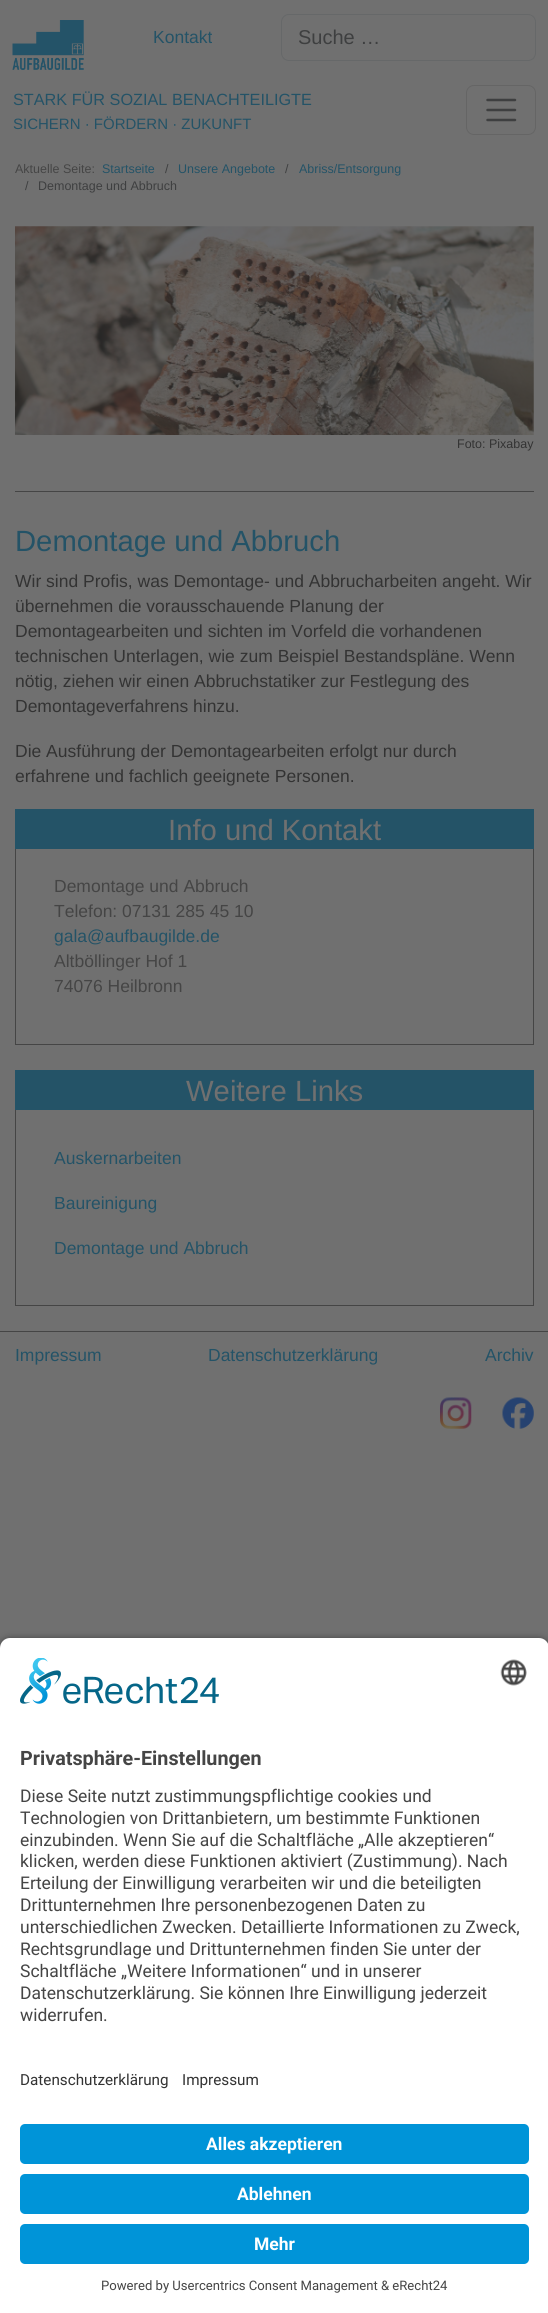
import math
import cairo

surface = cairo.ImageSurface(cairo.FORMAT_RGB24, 548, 2313)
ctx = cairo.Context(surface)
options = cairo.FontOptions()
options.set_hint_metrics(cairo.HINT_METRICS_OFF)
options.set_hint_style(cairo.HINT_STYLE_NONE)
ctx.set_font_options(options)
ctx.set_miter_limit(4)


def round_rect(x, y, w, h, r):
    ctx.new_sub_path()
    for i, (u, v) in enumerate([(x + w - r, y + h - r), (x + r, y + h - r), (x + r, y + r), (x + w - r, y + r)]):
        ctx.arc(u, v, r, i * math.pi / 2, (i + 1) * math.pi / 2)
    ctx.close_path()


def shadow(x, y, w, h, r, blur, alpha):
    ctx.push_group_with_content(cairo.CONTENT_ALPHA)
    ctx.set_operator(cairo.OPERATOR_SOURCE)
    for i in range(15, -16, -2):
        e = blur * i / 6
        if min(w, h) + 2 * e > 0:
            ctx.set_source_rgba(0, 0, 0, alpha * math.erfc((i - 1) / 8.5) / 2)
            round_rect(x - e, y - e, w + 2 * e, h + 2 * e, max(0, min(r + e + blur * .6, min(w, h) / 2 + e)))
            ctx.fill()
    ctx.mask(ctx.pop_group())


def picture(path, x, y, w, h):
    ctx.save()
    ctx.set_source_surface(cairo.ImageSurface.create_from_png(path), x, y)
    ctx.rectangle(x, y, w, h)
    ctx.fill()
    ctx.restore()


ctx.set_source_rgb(0.439, 0.439, 0.439)
ctx.paint()
picture("img1.png", 12, 20, 72, 50)
ctx.select_font_face("Liberation Sans")
ctx.set_font_size(17.5)
ctx.set_source_rgb(0.141, 0.325, 0.404)
ctx.move_to(153, 43)
ctx.show_text("Kontakt")
round_rect(281.5, 14.5, 254, 46, 7.5)
ctx.set_source_rgb(0.4, 0.408, 0.412)
ctx.set_line_width(1)
ctx.stroke()
ctx.set_font_size(20)
ctx.set_source_rgb(0.243, 0.247, 0.251)
ctx.move_to(298, 44)
ctx.show_text("Suche …")
ctx.set_font_size(16.25)
ctx.set_source_rgb(0.141, 0.325, 0.404)
ctx.move_to(13, 105)
ctx.show_text("STARK FÜR SOZIAL BENACHTEILIGTE")
ctx.set_font_size(15)
ctx.move_to(13, 129)
ctx.show_text("SICHERN · FÖRDERN · ZUKUNFT")
round_rect(466.5, 85.5, 69, 49, 7.5)
ctx.set_source_rgb(0.396, 0.396, 0.396)
ctx.stroke()
ctx.new_path()
ctx.move_to(487.5, 100)
ctx.line_to(515, 100)
ctx.move_to(487.5, 110)
ctx.line_to(515, 110)
ctx.move_to(487.5, 120)
ctx.line_to(515, 120)
ctx.set_source_rgb(0.243, 0.247, 0.251)
ctx.set_line_width(2.5)
ctx.set_line_cap(cairo.LINE_CAP_ROUND)
ctx.stroke()
ctx.set_font_size(12.5)
ctx.set_source_rgb(0.271, 0.271, 0.271)
ctx.move_to(15, 173)
ctx.show_text("Aktuelle Seite:")
ctx.set_source_rgb(0.141, 0.325, 0.404)
ctx.move_to(102, 173)
ctx.show_text("Startseite")
ctx.set_source_rgb(0.243, 0.247, 0.251)
ctx.move_to(165, 173)
ctx.show_text("/")
ctx.set_source_rgb(0.141, 0.325, 0.404)
ctx.move_to(178, 173)
ctx.show_text("Unsere Angebote")
ctx.set_source_rgb(0.243, 0.247, 0.251)
ctx.move_to(285, 173)
ctx.show_text("/")
ctx.set_source_rgb(0.141, 0.325, 0.404)
ctx.move_to(299, 173)
ctx.show_text("Abriss/Entsorgung")
ctx.set_source_rgb(0.243, 0.247, 0.251)
ctx.move_to(25, 190)
ctx.show_text("/")
ctx.move_to(38, 190)
ctx.show_text("Demontage und Abbruch")
picture("img2.png", 15, 226, 519, 209)
ctx.set_source_rgb(0.2, 0.2, 0.2)
ctx.move_to(457, 448)
ctx.show_text("Foto: Pixabay")
ctx.set_source_rgb(0.271, 0.271, 0.271)
ctx.rectangle(15, 491, 519, 1)
ctx.fill()
ctx.set_font_size(29.25)
ctx.set_source_rgb(0.141, 0.325, 0.404)
ctx.move_to(15, 551)
ctx.show_text("Demontage und Abbruch")
ctx.set_font_size(17.5)
ctx.set_source_rgb(0.2, 0.2, 0.2)
ctx.move_to(15, 587)
ctx.show_text("Wir sind Profis, was Demontage- und Abbrucharbeiten angeht. Wir")
ctx.move_to(15, 612)
ctx.show_text("übernehmen die vorausschauende Planung der")
ctx.move_to(15, 637)
ctx.show_text("Demontagearbeiten und sichten im Vorfeld die vorhandenen")
ctx.move_to(15, 662)
ctx.show_text("technischen Unterlagen, wie zum Beispiel Bestandspläne. Wenn")
ctx.move_to(15, 687)
ctx.show_text("nötig, ziehen wir einen Abbruchstatiker zur Festlegung des")
ctx.move_to(15, 712)
ctx.show_text("Demontageverfahrens hinzu.")
ctx.move_to(15, 757)
ctx.show_text("Die Ausführung der Demontagearbeiten erfolgt nur durch")
ctx.move_to(15, 782)
ctx.show_text("erfahrene und fachlich geeignete Personen.")
ctx.set_source_rgb(0.141, 0.325, 0.404)
ctx.rectangle(15, 809, 519, 40)
ctx.fill()
ctx.set_font_size(29.25)
ctx.set_source_rgb(0.439, 0.439, 0.439)
ctx.move_to(168, 840)
ctx.show_text("Info und Kontakt")
ctx.set_source_rgb(0.271, 0.271, 0.271)
ctx.rectangle(533, 849, 1, 196)
ctx.fill()
ctx.rectangle(15, 1044, 519, 1)
ctx.fill()
ctx.rectangle(15, 849, 1, 196)
ctx.fill()
ctx.set_font_size(17.5)
ctx.move_to(54, 892)
ctx.show_text("Demontage und Abbruch")
ctx.move_to(54, 917)
ctx.show_text("Telefon: 07131 285 45 10")
ctx.set_source_rgb(0.141, 0.325, 0.404)
ctx.move_to(54, 942)
ctx.show_text("gala@aufbaugilde.de")
ctx.set_source_rgb(0.271, 0.271, 0.271)
ctx.move_to(54, 967)
ctx.show_text("Altböllinger Hof 1")
ctx.move_to(54, 992)
ctx.show_text("74076 Heilbronn")
ctx.set_source_rgb(0.141, 0.325, 0.404)
ctx.rectangle(15, 1070, 519, 40)
ctx.fill()
ctx.set_font_size(29.25)
ctx.set_source_rgb(0.439, 0.439, 0.439)
ctx.move_to(186, 1101)
ctx.show_text("Weitere Links")
ctx.set_source_rgb(0.271, 0.271, 0.271)
ctx.rectangle(533, 1110, 1, 196)
ctx.fill()
ctx.rectangle(15, 1305, 519, 1)
ctx.fill()
ctx.rectangle(15, 1110, 1, 196)
ctx.fill()
ctx.set_font_size(17.5)
ctx.set_source_rgb(0.141, 0.325, 0.404)
ctx.move_to(54, 1164)
ctx.show_text("Auskernarbeiten")
ctx.move_to(54, 1209)
ctx.show_text("Baureinigung")
ctx.move_to(54, 1254)
ctx.show_text("Demontage und Abbruch")
ctx.set_source_rgb(0.271, 0.271, 0.271)
ctx.rectangle(0, 1331, 548, 1)
ctx.fill()
ctx.set_source_rgb(0.141, 0.325, 0.404)
ctx.move_to(15, 1361)
ctx.show_text("Impressum")
ctx.move_to(208, 1361)
ctx.show_text("Datenschutzerklärung")
ctx.move_to(485, 1361)
ctx.show_text("Archiv")
picture("img3.png", 440, 1397, 32, 32)
picture("img4.png", 502, 1397, 32, 32)
ctx.set_source_rgb(0, 0, 0)
shadow(0, 1641, 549, 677, 10, 4.5, 0.8)
ctx.set_source_rgb(1, 1, 1)
ctx.new_path()
ctx.move_to(10, 1638)
ctx.line_to(539, 1638)
ctx.curve_to(544.5, 1638, 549, 1642.5, 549, 1648)
ctx.line_to(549, 2051)
ctx.line_to(0, 2051)
ctx.line_to(0, 1648)
ctx.curve_to(0, 1642.5, 4.5, 1638, 10, 1638)
ctx.close_path()
ctx.fill()
picture("img5.png", 20, 1658, 199, 46)
picture("img6.png", 500, 1659, 27, 27)
ctx.select_font_face("Roboto", cairo.FONT_SLANT_NORMAL, cairo.FONT_WEIGHT_BOLD)
ctx.set_font_size(19.75)
ctx.set_source_rgb(0.271, 0.271, 0.271)
ctx.move_to(20, 1765)
ctx.show_text("Privatsphäre-Einstellungen")
ctx.select_font_face("Roboto")
ctx.set_font_size(17.5)
ctx.move_to(20, 1802)
ctx.show_text("Diese Seite nutzt zustimmungspflichtige cookies und")
ctx.move_to(20, 1824)
ctx.show_text("Technologien von Drittanbietern, um bestimmte Funktionen")
ctx.move_to(20, 1846)
ctx.show_text("einzubinden. Wenn Sie auf die Schaltfläche „Alle akzeptieren“")
ctx.move_to(20, 1867)
ctx.show_text("klicken, werden diese Funktionen aktiviert (Zustimmung). Nach")
ctx.move_to(20, 1889)
ctx.show_text("Erteilung der Einwilligung verarbeiten wir und die beteiligten")
ctx.move_to(20, 1911)
ctx.show_text("Drittunternehmen Ihre personenbezogenen Daten zu")
ctx.move_to(20, 1933)
ctx.show_text("unterschiedlichen Zwecken. Detaillierte Informationen zu Zweck,")
ctx.move_to(20, 1955)
ctx.show_text("Rechtsgrundlage und Drittunternehmen finden Sie unter der")
ctx.move_to(20, 1977)
ctx.show_text("Schaltfläche „Weitere Informationen“ und in unserer")
ctx.move_to(20, 1999)
ctx.show_text("Datenschutzerklärung. Sie können Ihre Einwilligung jederzeit")
ctx.move_to(20, 2021)
ctx.show_text("widerrufen.")
ctx.set_source_rgb(1, 1, 1)
ctx.rectangle(0, 2051, 548, 262)
ctx.fill()
ctx.set_font_size(15.25)
ctx.set_source_rgb(0.2, 0.2, 0.2)
ctx.move_to(20, 2085)
ctx.show_text("Datenschutzerklärung")
ctx.move_to(182, 2085)
ctx.show_text("Impressum")
ctx.set_source_rgb(0, 0.58, 0.847)
round_rect(20, 2124, 509, 40, 5)
ctx.fill()
ctx.select_font_face("Roboto", cairo.FONT_SLANT_NORMAL, cairo.FONT_WEIGHT_BOLD)
ctx.set_font_size(17.5)
ctx.set_source_rgb(1, 1, 1)
ctx.move_to(206, 2150)
ctx.show_text("Alles akzeptieren")
ctx.set_source_rgb(0, 0.58, 0.847)
round_rect(20, 2174, 509, 40, 5)
ctx.fill()
ctx.set_source_rgb(1, 1, 1)
ctx.move_to(237, 2200)
ctx.show_text("Ablehnen")
ctx.set_source_rgb(0, 0.58, 0.847)
round_rect(20, 2224, 509, 40, 5)
ctx.fill()
ctx.set_source_rgb(1, 1, 1)
ctx.move_to(254, 2250)
ctx.show_text("Mehr")
ctx.select_font_face("Roboto")
ctx.set_font_size(13.1)
ctx.set_source_rgb(0.271, 0.271, 0.271)
ctx.move_to(101, 2290)
ctx.show_text("Powered by Usercentrics Consent Management & eRecht24")
surface.write_to_png("page.png")
